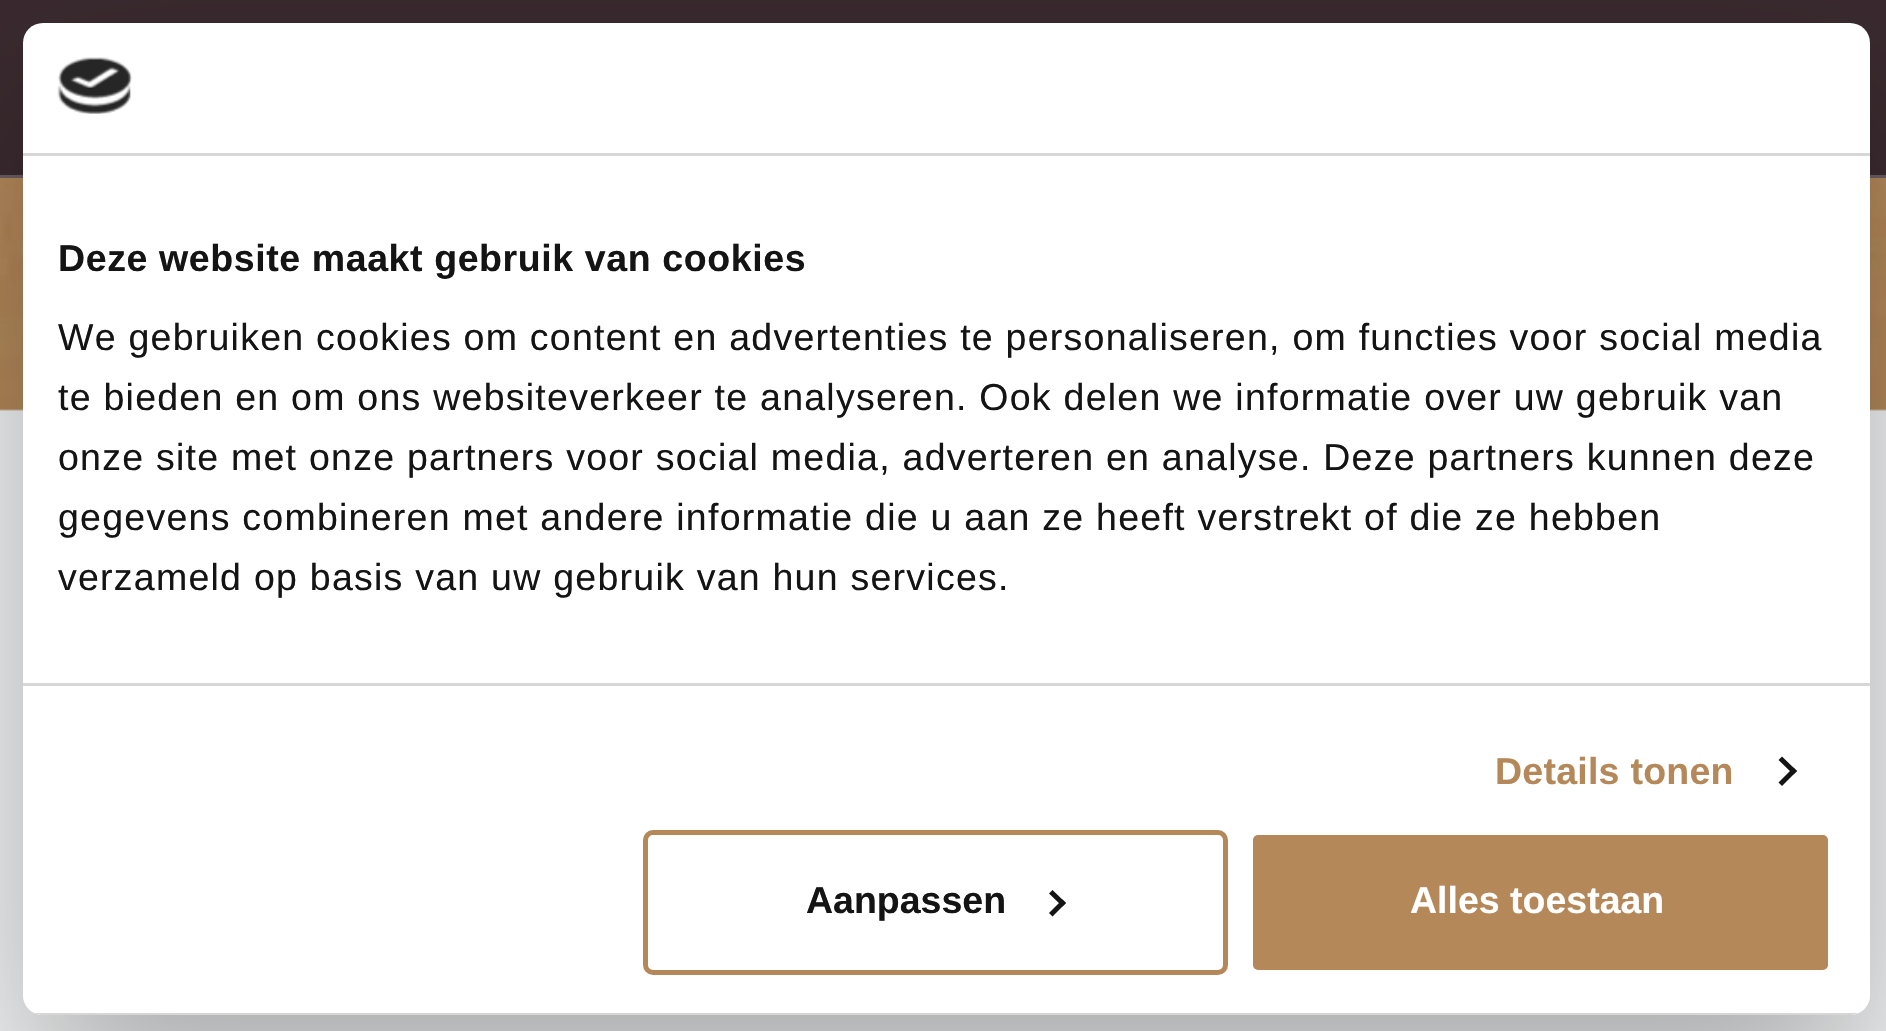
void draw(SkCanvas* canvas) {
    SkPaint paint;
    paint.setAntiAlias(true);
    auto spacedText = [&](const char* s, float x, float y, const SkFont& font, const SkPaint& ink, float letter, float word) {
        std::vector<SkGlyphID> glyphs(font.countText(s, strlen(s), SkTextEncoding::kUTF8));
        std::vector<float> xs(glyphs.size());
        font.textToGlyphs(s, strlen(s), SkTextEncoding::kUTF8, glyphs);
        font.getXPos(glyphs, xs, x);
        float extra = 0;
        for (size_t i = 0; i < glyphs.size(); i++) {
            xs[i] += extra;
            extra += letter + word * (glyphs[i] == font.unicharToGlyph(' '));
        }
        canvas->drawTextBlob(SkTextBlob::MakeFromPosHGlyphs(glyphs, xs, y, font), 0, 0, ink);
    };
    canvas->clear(0xFFF3F5F6);
    paint.setColor(0xFF3A2A2F);
    canvas->drawRect(SkRect::MakeXYWH(0, 0, 1886, 175), paint);
    paint.setColor(0xFF6A5F63);
    canvas->drawRect(SkRect::MakeXYWH(0, 175, 1886, 3), paint);
    canvas->drawImageRect(SkImages::DeferredFromEncodedData(SkData::MakeFromFileName("img1.png")), SkRect::MakeXYWH(0, 178, 1886, 233), SkSamplingOptions());
    canvas->save();
    canvas->clipPath(SkPathBuilder(SkPathFillType::kEvenOdd).moveTo(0, 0).lineTo(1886, 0).lineTo(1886, 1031).lineTo(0, 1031).close().moveTo(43, 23).lineTo(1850, 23).cubicTo(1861, 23, 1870, 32, 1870, 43).lineTo(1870, 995).cubicTo(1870, 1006, 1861, 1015, 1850, 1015).lineTo(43, 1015).cubicTo(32, 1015, 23, 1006, 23, 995).lineTo(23, 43).cubicTo(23, 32, 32, 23, 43, 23).close().detach(), true);
    paint.setColor(0x4D000000);
    paint.setMaskFilter(SkMaskFilter::MakeBlur(kNormal_SkBlurStyle, 85));
    canvas->drawRoundRect(SkRect::MakeXYWH(23, 103, 1847, 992), 20, 20, paint);
    paint.setMaskFilter(nullptr);
    canvas->restore();
    paint.setColor(0xFFFFFFFF);
    canvas->drawRoundRect(SkRect::MakeXYWH(23, 23, 1847, 992), 20, 20, paint);
    paint.setColor(0xFFD6D6D6);
    canvas->drawRect(SkRect::MakeXYWH(23, 153, 1847, 3), paint);
    canvas->drawImageRect(SkImages::DeferredFromEncodedData(SkData::MakeFromFileName("img2.png")), SkRect::MakeXYWH(57, 57, 75, 57), SkSamplingOptions());
    canvas->drawRect(SkRect::MakeXYWH(23, 683, 1847, 3), paint);
    SkFont font1(fontMgr->matchFamilyStyle("Liberation Sans", SkFontStyle::Bold()), 37.5f);
    font1.setSubpixel(true);
    paint.setColor(0xFF141414);
    spacedText("Deze website maakt gebruik van cookies", 58, 271, font1, paint, 0.6f, 0);
    SkFont font2(fontMgr->matchFamilyStyle("Liberation Sans", SkFontStyle::Normal()), 37.5f);
    font2.setSubpixel(true);
    spacedText("We gebruiken cookies om content en advertenties te personaliseren, om functies voor social media", 58, 350, font2, paint, 1.25f, 0);
    spacedText("te bieden en om ons websiteverkeer te analyseren. Ook delen we informatie over uw gebruik van", 58, 410, font2, paint, 1.25f, 0);
    spacedText("onze site met onze partners voor social media, adverteren en analyse. Deze partners kunnen deze", 58, 470, font2, paint, 1.25f, 0);
    spacedText("gegevens combineren met andere informatie die u aan ze heeft verstrekt of die ze hebben", 58, 530, font2, paint, 1.25f, 0);
    spacedText("verzameld op basis van uw gebruik van hun services.", 58, 590, font2, paint, 1.25f, 0);
    paint.setColor(0xFFB48859);
    spacedText("Details tonen", 1495, 784, font1, paint, 0.25f, 0);
    paint.setColor(0xFF141414);
    canvas->drawPath(SkPathBuilder().moveTo(1782, 756.5f).lineTo(1797, 771).lineTo(1793.5f, 774.5f).lineTo(1778.5f, 760).close().detach(), paint);
    canvas->drawPath(SkPathBuilder().moveTo(1793.5f, 767.5f).lineTo(1797, 771).lineTo(1782, 786).lineTo(1778.5f, 782.5f).close().detach(), paint);
    canvas->save();
    canvas->clipPath(SkPathBuilder().moveTo(43, 23).lineTo(1850, 23).cubicTo(1861, 23, 1870, 32, 1870, 43).lineTo(1870, 995).cubicTo(1870, 1006, 1861, 1015, 1850, 1015).lineTo(43, 1015).cubicTo(32, 1015, 23, 1006, 23, 995).lineTo(23, 43).cubicTo(23, 32, 32, 23, 43, 23).close().detach(), true);
    paint.setColor(0xFFD6D6D6);
    canvas->drawRect(SkRect::MakeXYWH(34, 1013, 1825, 2), paint);
    canvas->restore();
    paint.setStyle(SkPaint::kStroke_Style);
    paint.setStrokeWidth(5);
    paint.setColor(0xFFB48859);
    canvas->drawRoundRect(SkRect::MakeXYWH(645.5f, 832.5f, 580, 140), 7.5f, 7.5f, paint);
    paint.setStyle(SkPaint::kFill_Style);
    paint.setColor(0xFF141414);
    canvas->drawString("Aanpassen", 806, 913, font1, paint);
    canvas->drawPath(SkPathBuilder().moveTo(1052.5f, 890).lineTo(1066, 903).lineTo(1062.5f, 906.5f).lineTo(1049, 893.5f).close().detach(), paint);
    canvas->drawPath(SkPathBuilder().moveTo(1062.5f, 899.5f).lineTo(1066, 903).lineTo(1052.5f, 916.5f).lineTo(1049, 913).close().detach(), paint);
    paint.setColor(0xFFB48859);
    canvas->drawRoundRect(SkRect::MakeXYWH(1250.5f, 832.5f, 580, 140), 7.5f, 7.5f, paint);
    paint.setStyle(SkPaint::kStroke_Style);
    paint.setColor(0xFFFFFFFF);
    canvas->drawRoundRect(SkRect::MakeXYWH(1250.5f, 832.5f, 580, 140), 7.5f, 7.5f, paint);
    paint.setStyle(SkPaint::kFill_Style);
    canvas->drawString("Alles toestaan", 1410, 913, font1, paint);
}
